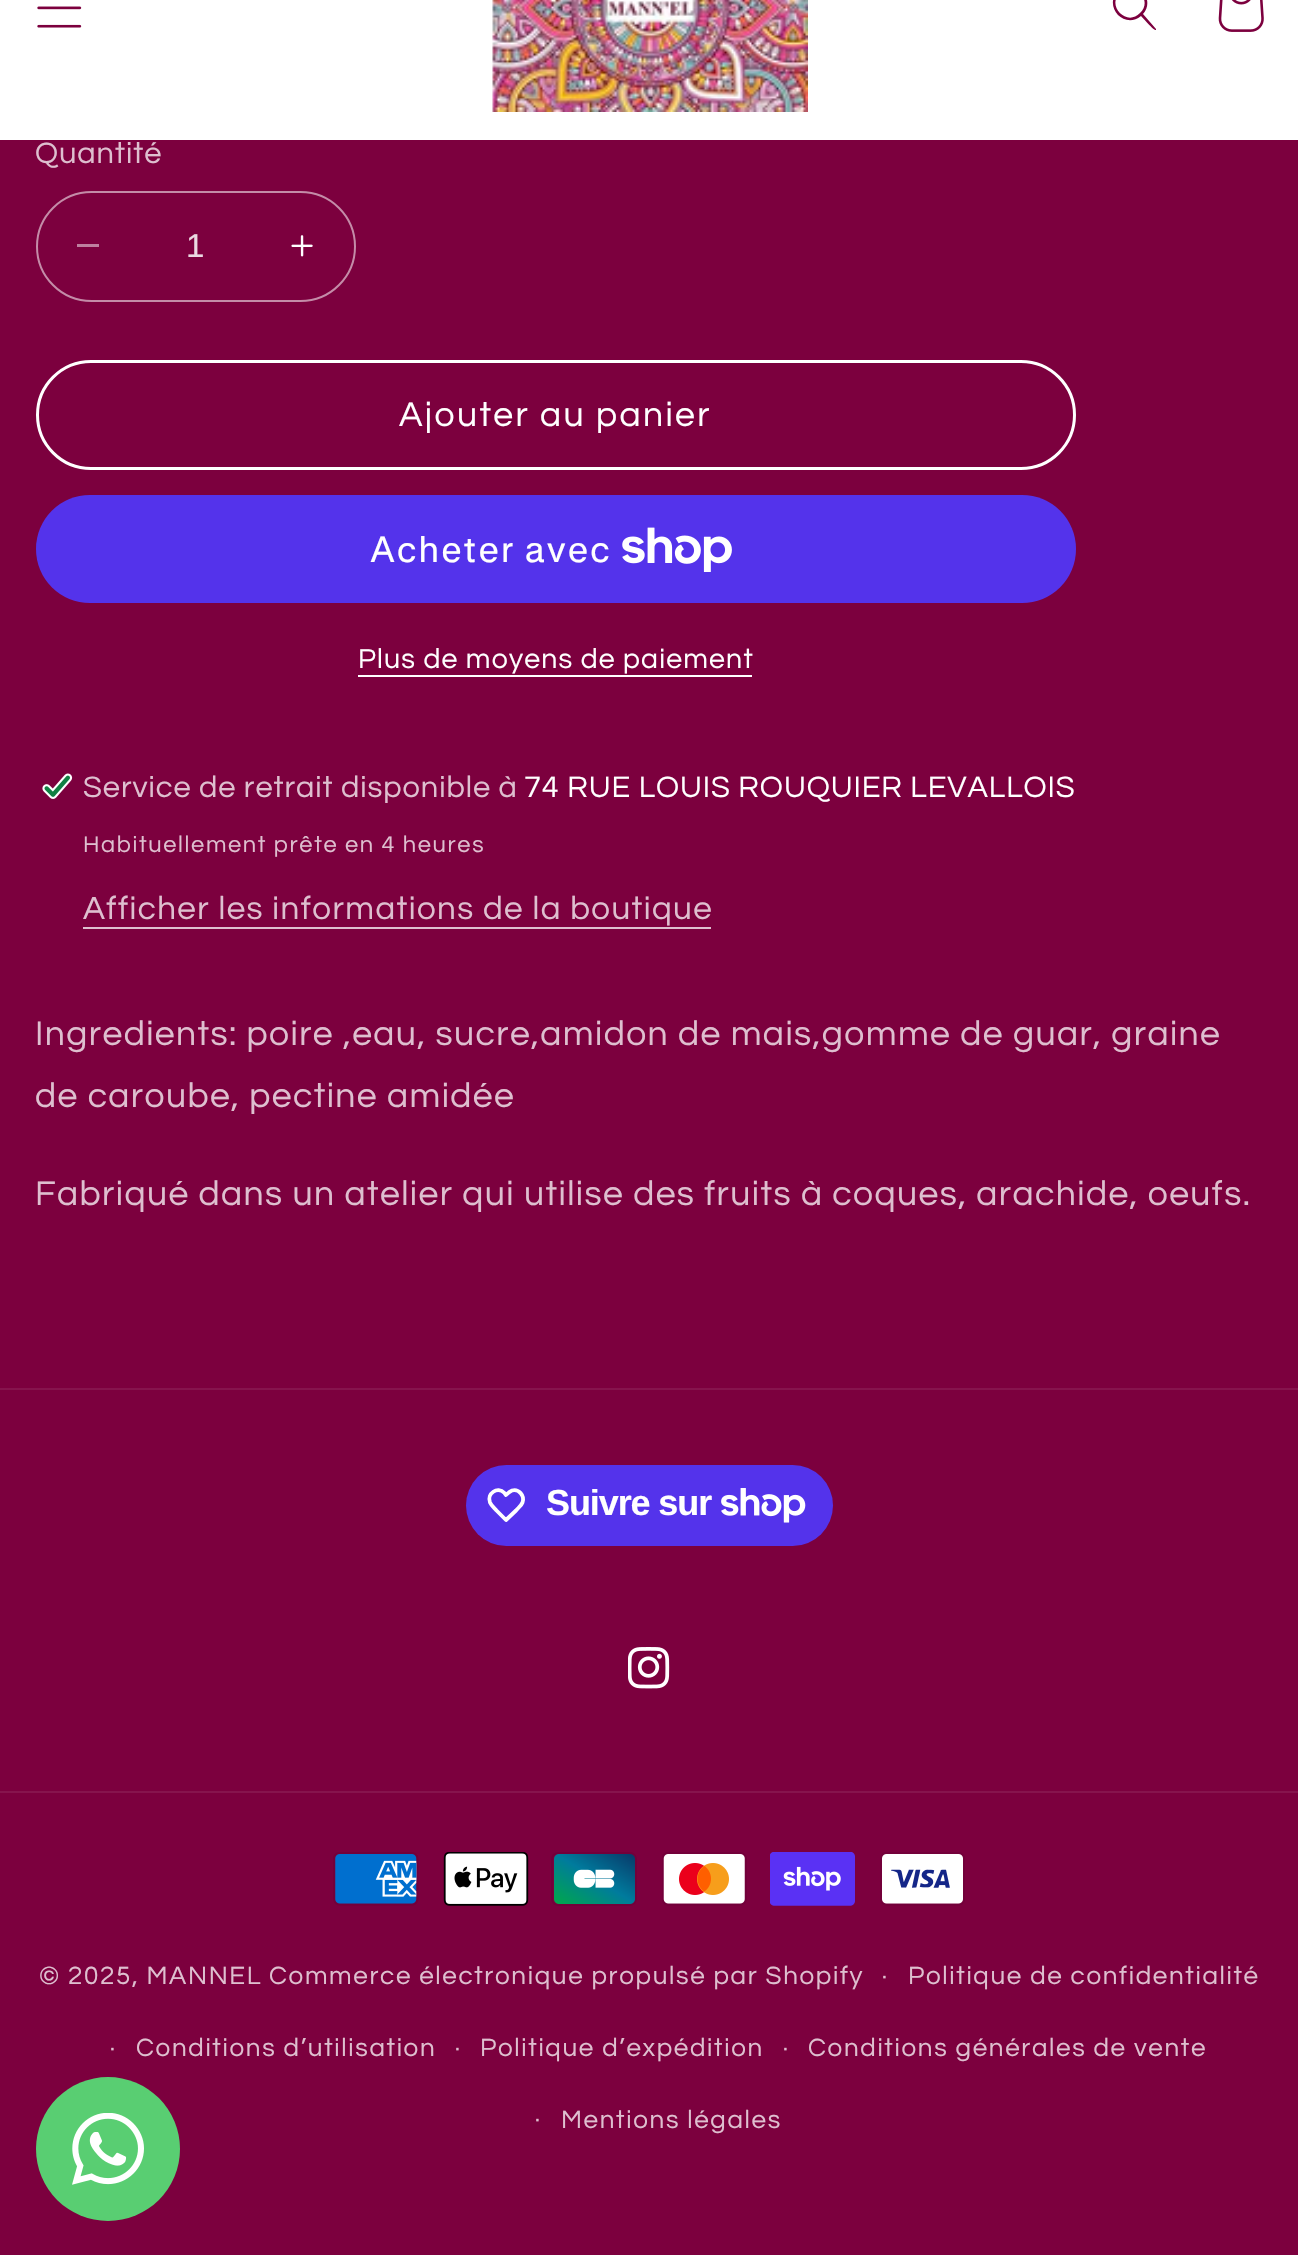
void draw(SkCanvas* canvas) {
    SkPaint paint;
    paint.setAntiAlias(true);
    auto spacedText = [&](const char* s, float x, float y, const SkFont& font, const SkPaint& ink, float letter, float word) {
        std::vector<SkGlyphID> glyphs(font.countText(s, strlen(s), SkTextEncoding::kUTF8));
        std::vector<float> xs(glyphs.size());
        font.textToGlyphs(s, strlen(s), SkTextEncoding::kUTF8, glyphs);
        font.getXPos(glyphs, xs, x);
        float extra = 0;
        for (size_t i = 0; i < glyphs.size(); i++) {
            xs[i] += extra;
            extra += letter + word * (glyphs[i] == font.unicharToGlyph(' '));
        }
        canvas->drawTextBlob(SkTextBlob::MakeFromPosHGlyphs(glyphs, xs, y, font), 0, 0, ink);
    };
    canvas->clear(0xFF7C003E);
    paint.setColor(0xFFFFFFFF);
    canvas->drawRect(SkRect::MakeXYWH(0, 0, 1298, 140), paint);
    canvas->drawImageRect(SkImages::DeferredFromEncodedData(SkData::MakeFromFileName("img1.png")), SkRect::MakeXYWH(37, 6, 45, 22), SkSamplingOptions());
    canvas->drawImageRect(SkImages::DeferredFromEncodedData(SkData::MakeFromFileName("img2.png")), SkRect::MakeXYWH(492, 0, 316, 112), SkSamplingOptions());
    paint.setColor(0xFF7C003E);
    canvas->drawPath(SkPathBuilder(SkPathFillType::kEvenOdd).moveTo(1140, 13).cubicTo(1127, 27, 1106, 6, 1120, -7).cubicTo(1133, -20, 1154, 0, 1140, 13).close().moveTo(1141, 16).cubicTo(1124, 30, 1103, 6, 1118, -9).cubicTo(1134, -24, 1157, -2, 1143, 14).lineTo(1156, 29).lineTo(1156, 30).cubicTo(1154, 31, 1143, 18, 1141, 16).close().detach(), paint);
    canvas->drawImageRect(SkImages::DeferredFromEncodedData(SkData::MakeFromFileName("img3.png")), SkRect::MakeXYWH(1218, 0, 46, 32), SkSamplingOptions());
    SkFont font1(fontMgr->matchFamilyStyle("Questrial", SkFontStyle::Normal()), 30.75f);
    font1.setSubpixel(true);
    paint.setColor(0xFFDEBFCF);
    spacedText("Quantité", 35, 163, font1, paint, 0.95f, 0);
    paint.setColor(0xFFBE809F);
    canvas->drawRect(SkRect::MakeXYWH(77, 244, 22, 3), paint);
    canvas->drawImageRect(SkImages::DeferredFromEncodedData(SkData::MakeFromFileName("img4.png")), SkRect::MakeXYWH(291, 235, 22, 22), SkSamplingOptions());
    paint.setStyle(SkPaint::kStroke_Style);
    paint.setStrokeWidth(2);
    paint.setColor(0xFFC48CA8);
    canvas->drawRoundRect(SkRect::MakeXYWH(37, 192, 318, 109), 54.5f, 54.5f, paint);
    SkFont font2(fontMgr->matchFamilyStyle("Liberation Sans", SkFontStyle::Normal()), 33.1f);
    font2.setSubpixel(true);
    paint.setStyle(SkPaint::kFill_Style);
    paint.setColor(0xFFEBD9E2);
    canvas->drawString("1", 186, 257, font2, paint);
    paint.setStyle(SkPaint::kStroke_Style);
    paint.setStrokeWidth(3);
    paint.setColor(0xFFFFFFFF);
    canvas->drawRoundRect(SkRect::MakeXYWH(37.5f, 361.5f, 1037, 107), 53.5f, 53.5f, paint);
    SkFont font3(fontMgr->matchFamilyStyle("Questrial", SkFontStyle::Normal()), 35.45f);
    font3.setSubpixel(true);
    paint.setStyle(SkPaint::kFill_Style);
    spacedText("Ajouter au panier", 399, 426, font3, paint, 2.4f, 0);
    paint.setColor(0xFF5433EB);
    canvas->drawRoundRect(SkRect::MakeXYWH(36, 495, 1040, 108), 54, 54, paint);
    SkFont font4(fontMgr->matchFamilyStyle("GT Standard", SkFontStyle::Normal()), 36);
    font4.setSubpixel(true);
    paint.setColor(0xFFFFFFFF);
    spacedText("Acheter avec", 370, 562, font4, paint, 1.42f, 0);
    canvas->drawImageRect(SkImages::DeferredFromEncodedData(SkData::MakeFromFileName("img5.png")), SkRect::MakeXYWH(622, 527, 110, 45), SkSamplingOptions());
    SkFont font5(fontMgr->matchFamilyStyle("Questrial", SkFontStyle::Normal()), 28.4f);
    font5.setSubpixel(true);
    spacedText("Plus de moyens de paiement", 358, 668, font5, paint, 1.2f, 0);
    canvas->drawRect(SkRect::MakeXYWH(358, 675, 394, 2), paint);
    canvas->drawImageRect(SkImages::DeferredFromEncodedData(SkData::MakeFromFileName("img6.png")), SkRect::MakeXYWH(42, 773, 31, 26), SkSamplingOptions());
    paint.setColor(0xFFDEBFCF);
    spacedText("Service de retrait disponible à", 83, 797, font1, paint, 0.95f, 0);
    paint.setColor(0xFFFFFFFF);
    spacedText("74 RUE LOUIS ROUQUIER LEVALLOIS", 524, 797, font1, paint, 0.95f, 0);
    SkFont font6(fontMgr->matchFamilyStyle("Questrial", SkFontStyle::Normal()), 23.6f);
    font6.setSubpixel(true);
    paint.setColor(0xFFDEBFCF);
    spacedText("Habituellement prête en 4 heures", 83, 852, font6, paint, 1.65f, 0);
    SkFont font7(fontMgr->matchFamilyStyle("Questrial", SkFontStyle::Normal()), 33.1f);
    font7.setSubpixel(true);
    spacedText("Afficher les informations de la boutique", 83, 919, font7, paint, 1.42f, 0);
    canvas->drawRect(SkRect::MakeXYWH(83, 927, 628, 2), paint);
    spacedText("Ingredients: poire ,eau, sucre,amidon de mais,gomme de guar, graine", 35, 1045, font3, paint, 1.42f, 0);
    spacedText("de caroube, pectine amidée", 35, 1107, font3, paint, 1.42f, 0);
    spacedText("Fabriqué dans un atelier qui utilise des fruits à coques, arachide, oeufs.", 35, 1205, font3, paint, 1.42f, 0);
    paint.setColor(0xFF86144D);
    canvas->drawRect(SkRect::MakeXYWH(0, 1388, 1298, 2), paint);
    paint.setColor(0xFF5433EB);
    canvas->drawRoundRect(SkRect::MakeXYWH(466, 1465, 367, 81), 40.5f, 40.5f, paint);
    paint.setStyle(SkPaint::kStroke_Style);
    paint.setStrokeWidth(3.8f);
    paint.setStrokeJoin(SkPaint::kRound_Join);
    paint.setColor(0xFFFFFFFF);
    canvas->drawPath(SkPathBuilder().moveTo(504.5f, 1493).lineTo(506, 1495).cubicTo(508, 1493, 509.5f, 1491.5f, 512, 1490.5f).cubicTo(518.5f, 1488.5f, 525, 1495.5f, 522.5f, 1502.5f).cubicTo(521.5f, 1505.5f, 518, 1508, 516, 1510.5f).lineTo(506, 1520).lineTo(496.5f, 1510.5f).cubicTo(494.5f, 1508, 491.5f, 1506, 490, 1502.5f).cubicTo(486.5f, 1493.5f, 497.5f, 1486, 504.5f, 1493).close().detach(), paint);
    SkFont font8(fontMgr->matchFamilyStyle("Liberation Sans", SkFontStyle::Bold()), 36);
    font8.setSubpixel(true);
    paint.setStyle(SkPaint::kFill_Style);
    spacedText("Suivre sur", 546, 1515, font8, paint, -1.1f, 0);
    canvas->drawImageRect(SkImages::DeferredFromEncodedData(SkData::MakeFromFileName("img7.png")), SkRect::MakeXYWH(721, 1488, 85, 35), SkSamplingOptions());
    canvas->drawImageRect(SkImages::DeferredFromEncodedData(SkData::MakeFromFileName("img8.png")), SkRect::MakeXYWH(628, 1647, 42, 42), SkSamplingOptions());
    paint.setColor(0xFF86144D);
    canvas->drawRect(SkRect::MakeXYWH(0, 1791, 1298, 2), paint);
    canvas->drawImageRect(SkImages::DeferredFromEncodedData(SkData::MakeFromFileName("img9.png")), SkRect::MakeXYWH(333, 1852, 86, 54), SkSamplingOptions());
    canvas->drawImageRect(SkImages::DeferredFromEncodedData(SkData::MakeFromFileName("img10.png")), SkRect::MakeXYWH(443, 1852, 86, 54), SkSamplingOptions());
    canvas->drawImageRect(SkImages::DeferredFromEncodedData(SkData::MakeFromFileName("img11.png")), SkRect::MakeXYWH(551, 1852, 86, 54), SkSamplingOptions());
    canvas->drawImageRect(SkImages::DeferredFromEncodedData(SkData::MakeFromFileName("img12.png")), SkRect::MakeXYWH(662, 1852, 85, 54), SkSamplingOptions());
    canvas->drawImageRect(SkImages::DeferredFromEncodedData(SkData::MakeFromFileName("img13.png")), SkRect::MakeXYWH(770, 1852, 85, 54), SkSamplingOptions());
    canvas->drawImageRect(SkImages::DeferredFromEncodedData(SkData::MakeFromFileName("img14.png")), SkRect::MakeXYWH(880, 1852, 85, 54), SkSamplingOptions());
    paint.setColor(0xFFDEBFCF);
    spacedText("·", 882, 1984, font6, paint, 1.65f, 0);
    SkFont font9(fontMgr->matchFamilyStyle("Questrial", SkFontStyle::Normal()), 26);
    font9.setSubpixel(true);
    spacedText("Politique de confidentialité", 908, 1984, font9, paint, 1.65f, 0);
    spacedText("·", 110, 2056, font6, paint, 1.65f, 0);
    spacedText("Conditions d’utilisation", 136, 2056, font9, paint, 1.65f, 0);
    spacedText("·", 455, 2056, font6, paint, 1.65f, 0);
    spacedText("Politique d’expédition", 480, 2056, font9, paint, 1.65f, 0);
    spacedText("·", 783, 2056, font6, paint, 1.65f, 0);
    spacedText("Conditions générales de vente", 808, 2056, font9, paint, 1.65f, 0);
    spacedText("·", 535, 2127, font6, paint, 1.65f, 0);
    spacedText("Mentions légales", 561, 2128, font9, paint, 1.65f, 0);
    spacedText("© 2025, MANNEL", 39, 1984, font9, paint, 1.65f, 0);
    spacedText("Commerce électronique propulsé par Shopify", 269, 1984, font9, paint, 1.65f, 0);
    paint.setColor(0xFF59CE72);
    canvas->drawCircle(108, 2149, 72, paint);
    canvas->drawImageRect(SkImages::DeferredFromEncodedData(SkData::MakeFromFileName("img15.png")), SkRect::MakeXYWH(72, 2113, 72, 72), SkSamplingOptions());
}
